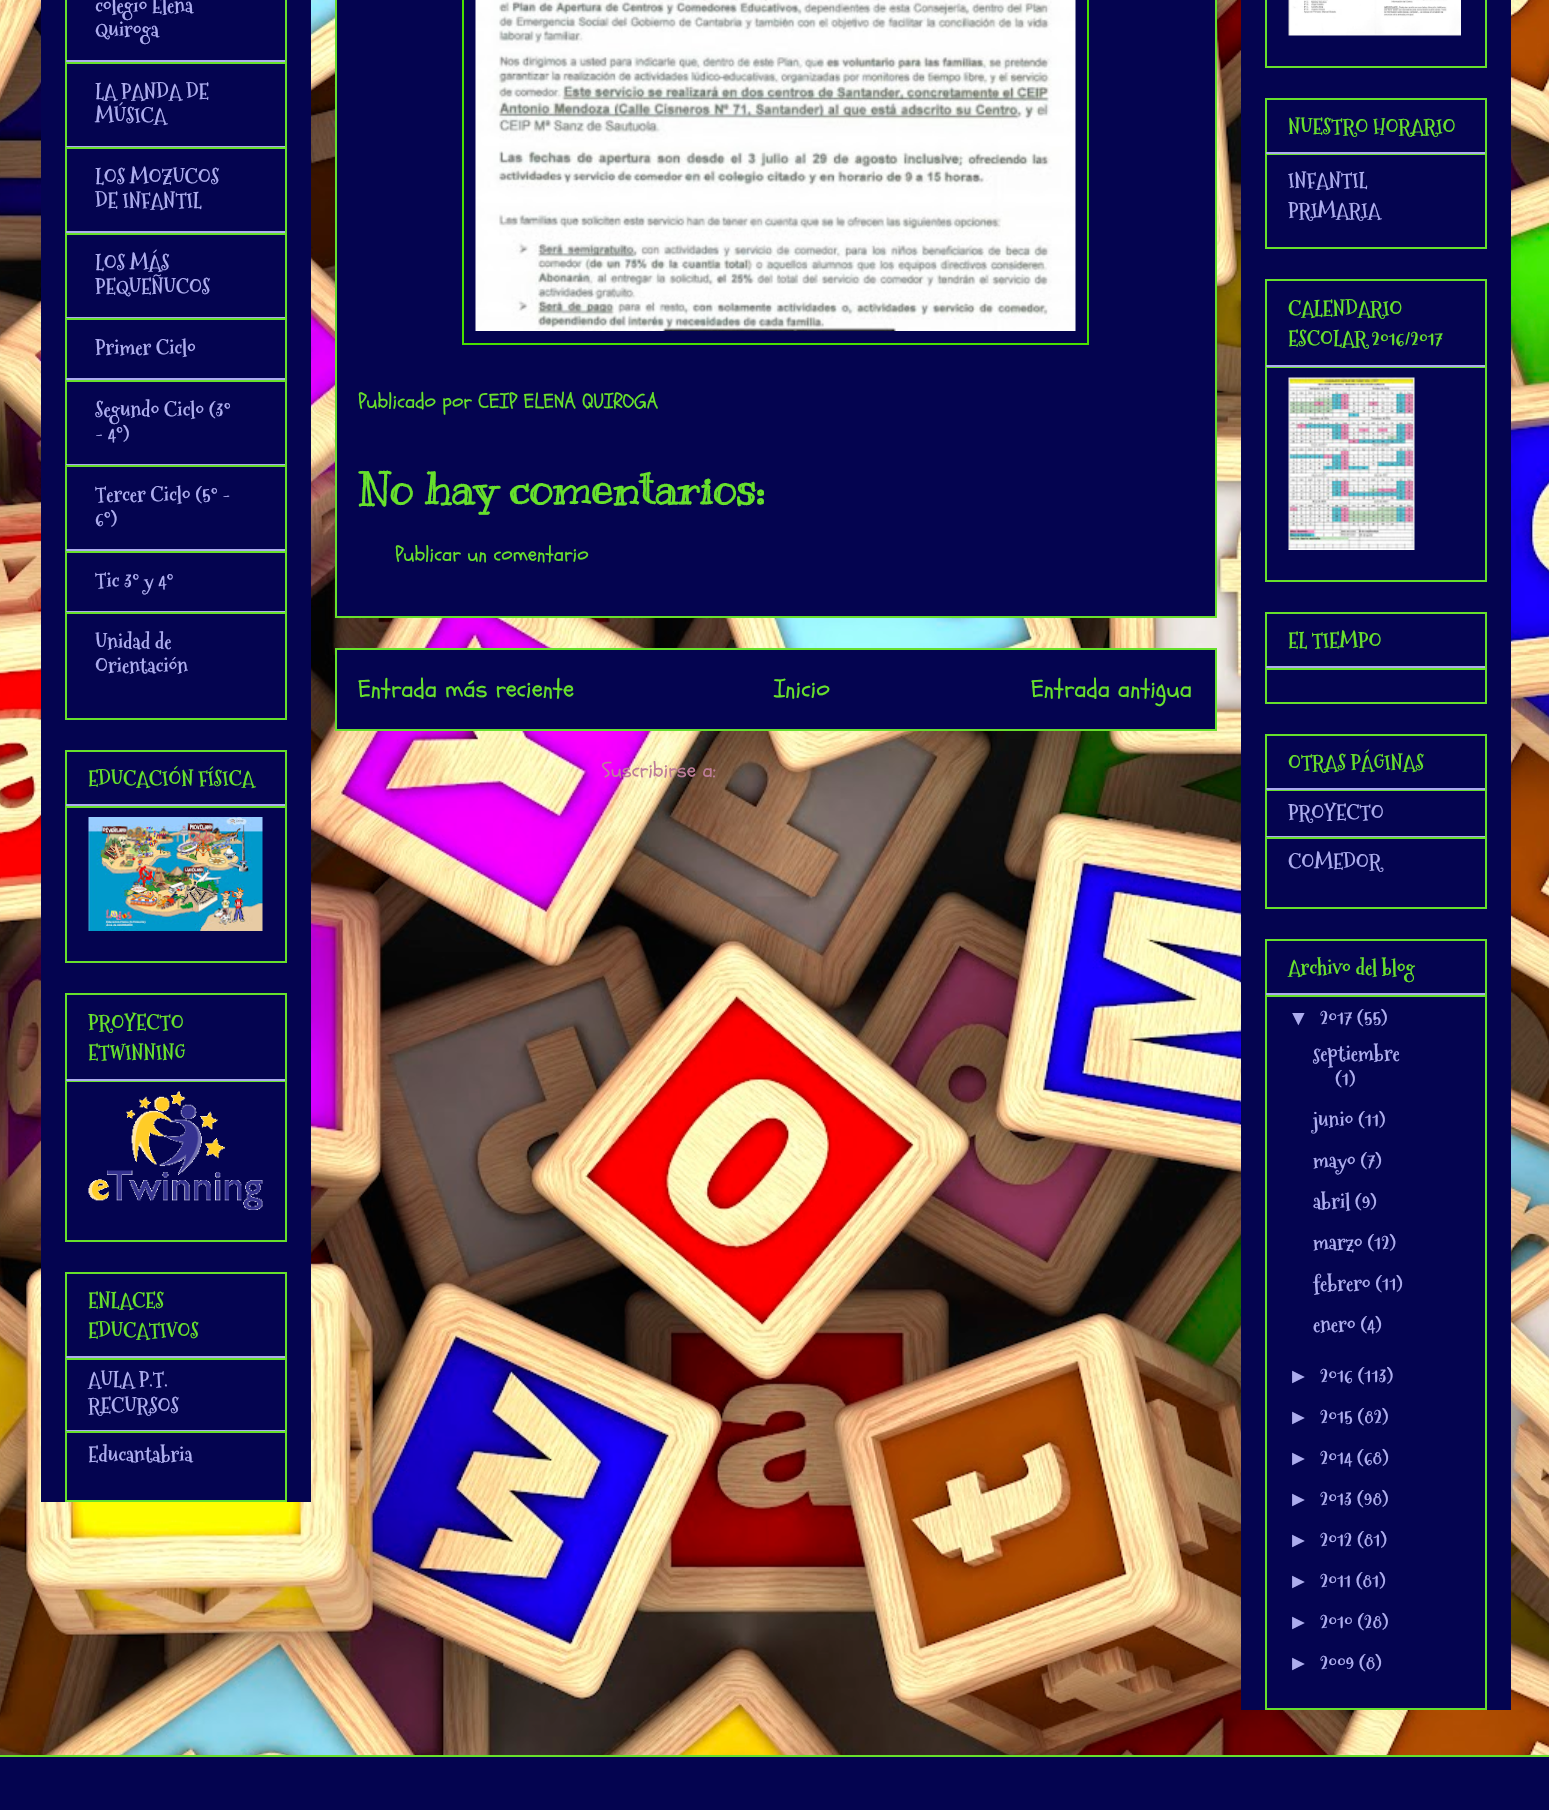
void draw(SkCanvas* canvas) {
    SkPaint paint;
    paint.setAntiAlias(true);
    canvas->clear(0xFFFFFFFF);
    canvas->drawImageRect(SkImages::DeferredFromEncodedData(SkData::MakeFromFileName("img1.png")), SkRect::MakeXYWH(0, 0, 1549, 1755), SkSamplingOptions());
    paint.setColor(0xFF040450);
    canvas->drawRect(SkRect::MakeXYWH(41, 0, 270, 1502), paint);
    paint.setStyle(SkPaint::kStroke_Style);
    paint.setStrokeWidth(2);
    paint.setColor(0xFF67E02C);
    canvas->drawRect(SkRect::MakeXYWH(66, -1, 220, 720), paint);
    paint.setStyle(SkPaint::kFill_Style);
    paint.setColor(0xFFACACEE);
    canvas->drawRect(SkRect::MakeXYWH(66, 60, 219, 2), paint);
    SkFont font1(fontMgr->matchFamilyStyle("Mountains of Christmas", SkFontStyle::Bold()), 21);
    font1.setSubpixel(true);
    canvas->drawString("colegio Elena", 95, 13, font1, paint);
    canvas->drawString("Quiroga", 95, 37, font1, paint);
    paint.setColor(0xFF67E02C);
    canvas->drawRect(SkRect::MakeXYWH(66, 62, 219, 2), paint);
    paint.setColor(0xFFACACEE);
    canvas->drawRect(SkRect::MakeXYWH(66, 146, 219, 1), paint);
    canvas->drawString("LA PANDA DE", 95, 99, font1, paint);
    canvas->drawString("MÚSICA", 95, 123, font1, paint);
    paint.setColor(0xFF67E02C);
    canvas->drawRect(SkRect::MakeXYWH(66, 147, 219, 2), paint);
    paint.setColor(0xFFACACEE);
    canvas->drawRect(SkRect::MakeXYWH(66, 231, 219, 2), paint);
    canvas->drawString("LOS MOZUCOS", 95, 184, font1, paint);
    canvas->drawString("DE INFANTIL", 95, 208, font1, paint);
    paint.setColor(0xFF67E02C);
    canvas->drawRect(SkRect::MakeXYWH(66, 233, 219, 2), paint);
    paint.setColor(0xFFACACEE);
    canvas->drawRect(SkRect::MakeXYWH(66, 317, 219, 1), paint);
    canvas->drawString("LOS MÁS", 95, 270, font1, paint);
    canvas->drawString("PEQUEÑUCOS", 95, 294, font1, paint);
    paint.setColor(0xFF67E02C);
    canvas->drawRect(SkRect::MakeXYWH(66, 318, 219, 2), paint);
    paint.setColor(0xFFACACEE);
    canvas->drawRect(SkRect::MakeXYWH(66, 378, 219, 2), paint);
    canvas->drawString("Primer Ciclo", 95, 355, font1, paint);
    paint.setColor(0xFF67E02C);
    canvas->drawRect(SkRect::MakeXYWH(66, 380, 219, 2), paint);
    paint.setColor(0xFFACACEE);
    canvas->drawRect(SkRect::MakeXYWH(66, 464, 219, 1), paint);
    canvas->drawString("Segundo Ciclo (3º", 95, 417, font1, paint);
    canvas->drawString("- 4º)", 95, 441, font1, paint);
    paint.setColor(0xFF67E02C);
    canvas->drawRect(SkRect::MakeXYWH(66, 465, 219, 2), paint);
    paint.setColor(0xFFACACEE);
    canvas->drawRect(SkRect::MakeXYWH(66, 549, 219, 2), paint);
    canvas->drawString("Tercer Ciclo (5º -", 95, 502, font1, paint);
    canvas->drawString("6º)", 95, 526, font1, paint);
    paint.setColor(0xFF67E02C);
    canvas->drawRect(SkRect::MakeXYWH(66, 551, 219, 2), paint);
    paint.setColor(0xFFACACEE);
    canvas->drawRect(SkRect::MakeXYWH(66, 611, 219, 1), paint);
    canvas->drawString("Tic 3º y 4º", 95, 588, font1, paint);
    paint.setColor(0xFF67E02C);
    canvas->drawRect(SkRect::MakeXYWH(66, 612, 219, 2), paint);
    paint.setColor(0xFFACACEE);
    canvas->drawString("Unidad de", 95, 649, font1, paint);
    canvas->drawString("Orientación", 95, 673, font1, paint);
    paint.setStyle(SkPaint::kStroke_Style);
    paint.setColor(0xFF67E02C);
    canvas->drawRect(SkRect::MakeXYWH(66, 751, 220, 211), paint);
    paint.setStyle(SkPaint::kFill_Style);
    paint.setColor(0xFFACACEE);
    canvas->drawRect(SkRect::MakeXYWH(66, 804, 219, 2), paint);
    paint.setColor(0xFF67E02C);
    canvas->drawString("EDUCACIÓN FÍSICA", 88, 786, font1, paint);
    canvas->drawRect(SkRect::MakeXYWH(66, 806, 219, 2), paint);
    canvas->drawImageRect(SkImages::DeferredFromEncodedData(SkData::MakeFromFileName("img2.png")), SkRect::MakeXYWH(88, 817, 175, 114), SkSamplingOptions());
    paint.setStyle(SkPaint::kStroke_Style);
    canvas->drawRect(SkRect::MakeXYWH(66, 994, 220, 247), paint);
    paint.setStyle(SkPaint::kFill_Style);
    paint.setColor(0xFFACACEE);
    canvas->drawRect(SkRect::MakeXYWH(66, 1079, 219, 2), paint);
    paint.setColor(0xFF67E02C);
    canvas->drawString("PROYECTO", 88, 1030, font1, paint);
    canvas->drawString("ETWINNING", 88, 1060, font1, paint);
    canvas->drawRect(SkRect::MakeXYWH(66, 1081, 219, 1), paint);
    canvas->drawImageRect(SkImages::DeferredFromEncodedData(SkData::MakeFromFileName("img3.png")), SkRect::MakeXYWH(88, 1091, 175, 119), SkSamplingOptions());
    paint.setStyle(SkPaint::kStroke_Style);
    canvas->drawRect(SkRect::MakeXYWH(66, 1273, 220, 228), paint);
    paint.setStyle(SkPaint::kFill_Style);
    paint.setColor(0xFFACACEE);
    canvas->drawRect(SkRect::MakeXYWH(66, 1356, 219, 2), paint);
    paint.setColor(0xFF67E02C);
    canvas->drawString("ENLACES", 88, 1308, font1, paint);
    canvas->drawString("EDUCATIVOS", 88, 1338, font1, paint);
    canvas->drawRect(SkRect::MakeXYWH(66, 1358, 219, 2), paint);
    paint.setColor(0xFFACACEE);
    canvas->drawRect(SkRect::MakeXYWH(66, 1430, 219, 1), paint);
    canvas->drawString("AULA P.T.", 88, 1387, font1, paint);
    canvas->drawString("RECURSOS", 88, 1413, font1, paint);
    paint.setColor(0xFF67E02C);
    canvas->drawRect(SkRect::MakeXYWH(66, 1431, 219, 2), paint);
    paint.setColor(0xFFACACEE);
    canvas->drawString("Educantabria", 88, 1462, font1, paint);
    paint.setColor(0xFF040450);
    canvas->drawRect(SkRect::MakeXYWH(336, -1, 880, 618), paint);
    paint.setStyle(SkPaint::kStroke_Style);
    paint.setColor(0xFF67E02C);
    canvas->drawRect(SkRect::MakeXYWH(336, -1, 880, 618), paint);
    paint.setColor(0xFF49E000);
    canvas->drawRect(SkRect::MakeXYWH(463, -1, 625, 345), paint);
    canvas->drawImageRect(SkImages::DeferredFromEncodedData(SkData::MakeFromFileName("img4.png")), SkRect::MakeXYWH(475, 0, 601, 331), SkSamplingOptions());
    SkFont font2(fontMgr->matchFamilyStyle("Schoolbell", SkFontStyle::Normal()), 21);
    font2.setSubpixel(true);
    paint.setStyle(SkPaint::kFill_Style);
    paint.setColor(0xFF67E02C);
    canvas->drawString("Publicado por CEIP ELENA QUIROGA", 358, 408, font2, paint);
    SkFont font3(fontMgr->matchFamilyStyle("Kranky", SkFontStyle::Bold()), 45);
    font3.setSubpixel(true);
    canvas->drawString("No hay comentarios:", 358, 504, font3, paint);
    canvas->drawString("Publicar un comentario", 395, 561, font2, paint);
    paint.setColor(0xFF040450);
    canvas->drawRect(SkRect::MakeXYWH(336, 649, 880, 81), paint);
    paint.setStyle(SkPaint::kStroke_Style);
    paint.setColor(0xFF67E02C);
    canvas->drawRect(SkRect::MakeXYWH(336, 649, 880, 81), paint);
    SkFont font4(fontMgr->matchFamilyStyle("Schoolbell", SkFontStyle::Normal()), 25.25f);
    font4.setSubpixel(true);
    paint.setStyle(SkPaint::kFill_Style);
    canvas->drawString("Entrada más reciente", 358, 697, font4, paint);
    canvas->drawString("Inicio", 774, 697, font4, paint);
    canvas->drawString("Entrada antigua", 1031, 697, font4, paint);
    paint.setColor(0xFFBE7D99);
    canvas->drawString("Suscribirse a:", 602, 777, font2, paint);
    paint.setColor(0xFF040450);
    canvas->drawRect(SkRect::MakeXYWH(1241, 0, 270, 1710), paint);
    paint.setStyle(SkPaint::kStroke_Style);
    paint.setColor(0xFF67E02C);
    canvas->drawRect(SkRect::MakeXYWH(1266, -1, 220, 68), paint);
    canvas->drawImageRect(SkImages::DeferredFromEncodedData(SkData::MakeFromFileName("img5.png")), SkRect::MakeXYWH(1288, 0, 173, 36), SkSamplingOptions());
    canvas->drawRect(SkRect::MakeXYWH(1266, 99, 220, 149), paint);
    paint.setStyle(SkPaint::kFill_Style);
    paint.setColor(0xFFACACEE);
    canvas->drawRect(SkRect::MakeXYWH(1266, 152, 219, 2), paint);
    paint.setColor(0xFF67E02C);
    canvas->drawString("NUESTRO HORARIO", 1288, 134, font1, paint);
    canvas->drawRect(SkRect::MakeXYWH(1266, 154, 219, 1), paint);
    paint.setColor(0xFFACACEE);
    canvas->drawString("INFANTIL", 1288, 188, font1, paint);
    canvas->drawString("PRIMARIA", 1288, 218, font1, paint);
    paint.setStyle(SkPaint::kStroke_Style);
    paint.setColor(0xFF67E02C);
    canvas->drawRect(SkRect::MakeXYWH(1266, 280, 220, 301), paint);
    paint.setStyle(SkPaint::kFill_Style);
    paint.setColor(0xFFACACEE);
    canvas->drawRect(SkRect::MakeXYWH(1266, 365, 219, 2), paint);
    paint.setColor(0xFF67E02C);
    canvas->drawString("CALENDARIO", 1288, 316, font1, paint);
    canvas->drawString("ESCOLAR 2016/2017", 1288, 346, font1, paint);
    canvas->drawRect(SkRect::MakeXYWH(1266, 367, 219, 1), paint);
    canvas->drawImageRect(SkImages::DeferredFromEncodedData(SkData::MakeFromFileName("img6.png")), SkRect::MakeXYWH(1288, 377, 127, 173), SkSamplingOptions());
    paint.setStyle(SkPaint::kStroke_Style);
    canvas->drawRect(SkRect::MakeXYWH(1266, 613, 220, 90), paint);
    paint.setStyle(SkPaint::kFill_Style);
    paint.setColor(0xFFACACEE);
    canvas->drawRect(SkRect::MakeXYWH(1266, 666, 219, 2), paint);
    paint.setColor(0xFF67E02C);
    canvas->drawString("EL TIEMPO", 1288, 648, font1, paint);
    canvas->drawRect(SkRect::MakeXYWH(1266, 668, 219, 2), paint);
    paint.setStyle(SkPaint::kStroke_Style);
    canvas->drawRect(SkRect::MakeXYWH(1266, 735, 220, 173), paint);
    paint.setStyle(SkPaint::kFill_Style);
    paint.setColor(0xFFACACEE);
    canvas->drawRect(SkRect::MakeXYWH(1266, 788, 219, 2), paint);
    paint.setColor(0xFF67E02C);
    canvas->drawString("OTRAS PÁGINAS", 1288, 770, font1, paint);
    canvas->drawRect(SkRect::MakeXYWH(1266, 790, 219, 1), paint);
    paint.setColor(0xFFACACEE);
    canvas->drawRect(SkRect::MakeXYWH(1266, 836, 219, 1), paint);
    canvas->drawString("PROYECTO", 1288, 820, font1, paint);
    paint.setColor(0xFF67E02C);
    canvas->drawRect(SkRect::MakeXYWH(1266, 837, 219, 2), paint);
    paint.setColor(0xFFACACEE);
    canvas->drawString("COMEDOR", 1288, 869, font1, paint);
    paint.setStyle(SkPaint::kStroke_Style);
    paint.setColor(0xFF67E02C);
    canvas->drawRect(SkRect::MakeXYWH(1266, 940, 220, 769), paint);
    paint.setStyle(SkPaint::kFill_Style);
    paint.setColor(0xFFACACEE);
    canvas->drawRect(SkRect::MakeXYWH(1266, 993, 219, 2), paint);
    paint.setColor(0xFF67E02C);
    canvas->drawString("Archivo del blog", 1288, 975, font1, paint);
    canvas->drawRect(SkRect::MakeXYWH(1266, 995, 219, 2), paint);
    SkFont font5(fontMgr->matchFamilyStyle("Liberation Sans", SkFontStyle::Bold()), 21);
    font5.setSubpixel(true);
    paint.setColor(0xFFACACEE);
    canvas->drawString("▼", 1288, 1025, font5, paint);
    canvas->drawString("2017 (55)", 1320, 1025, font1, paint);
    canvas->drawString("septiembre", 1313, 1061, font1, paint);
    canvas->drawString("(1)", 1335, 1086, font1, paint);
    canvas->drawString("junio (11)", 1313, 1127, font1, paint);
    canvas->drawString("mayo (7)", 1313, 1168, font1, paint);
    canvas->drawString("abril (9)", 1313, 1209, font1, paint);
    canvas->drawString("marzo (12)", 1313, 1250, font1, paint);
    canvas->drawString("febrero (11)", 1313, 1291, font1, paint);
    canvas->drawString("enero (4)", 1313, 1332, font1, paint);
    canvas->drawString("►", 1288, 1383, font5, paint);
    canvas->drawString("2016 (113)", 1320, 1383, font1, paint);
    canvas->drawString("►", 1288, 1424, font5, paint);
    canvas->drawString("2015 (82)", 1320, 1424, font1, paint);
    canvas->drawString("►", 1288, 1465, font5, paint);
    canvas->drawString("2014 (68)", 1320, 1465, font1, paint);
    canvas->drawString("►", 1288, 1506, font5, paint);
    canvas->drawString("2013 (98)", 1320, 1506, font1, paint);
    canvas->drawString("►", 1288, 1547, font5, paint);
    canvas->drawString("2012 (81)", 1320, 1547, font1, paint);
    canvas->drawString("►", 1288, 1588, font5, paint);
    canvas->drawString("2011 (81)", 1320, 1588, font1, paint);
    canvas->drawString("►", 1288, 1629, font5, paint);
    canvas->drawString("2010 (28)", 1320, 1629, font1, paint);
    canvas->drawString("►", 1288, 1670, font5, paint);
    canvas->drawString("2009 (8)", 1320, 1670, font1, paint);
    paint.setColor(0xFF040450);
    canvas->drawRect(SkRect::MakeXYWH(0, 1757, 1549, 53), paint);
    paint.setColor(0xFF67E02C);
    canvas->drawRect(SkRect::MakeXYWH(0, 1755, 1549, 2), paint);
}
